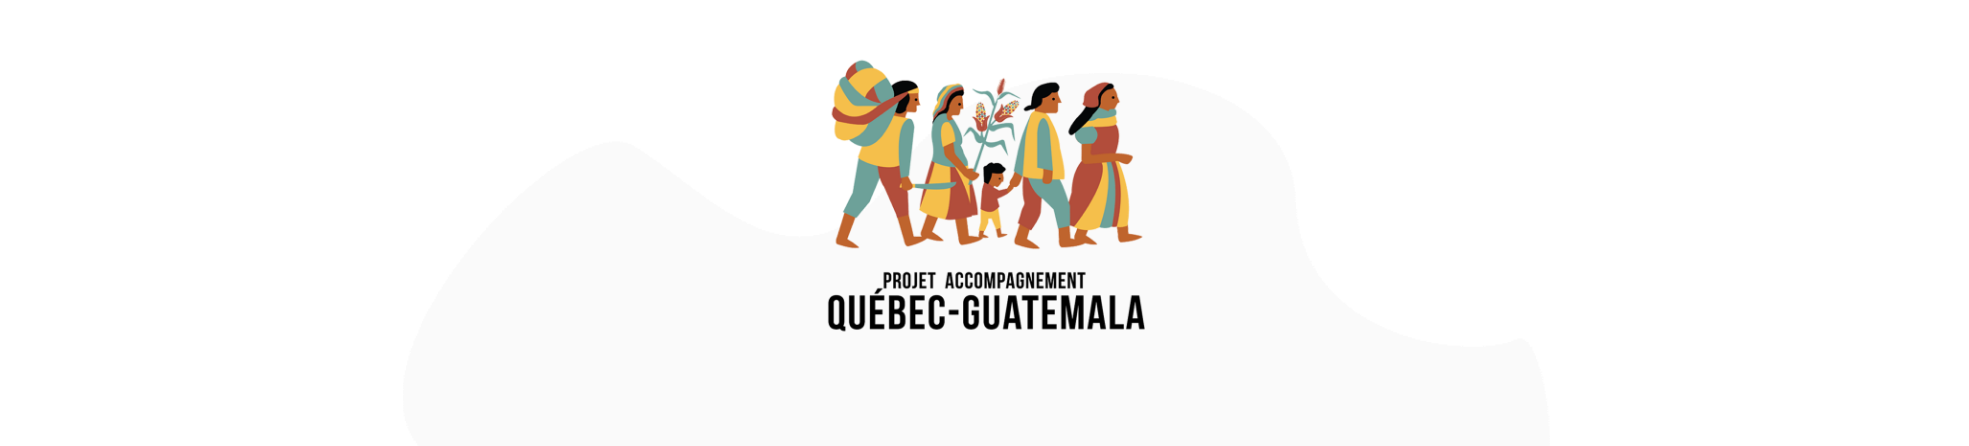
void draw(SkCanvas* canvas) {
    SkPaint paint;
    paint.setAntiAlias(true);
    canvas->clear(0xFFFFFFFF);
    canvas->drawImageRect(SkImages::DeferredFromEncodedData(SkData::MakeFromFileName("img1.png")), SkRect::MakeXYWH(403, 73, 1147, 373), SkSamplingOptions());
    canvas->drawImageRect(SkImages::DeferredFromEncodedData(SkData::MakeFromFileName("img2.png")), SkRect::MakeXYWH(827, 59, 318, 273), SkSamplingOptions());
}
